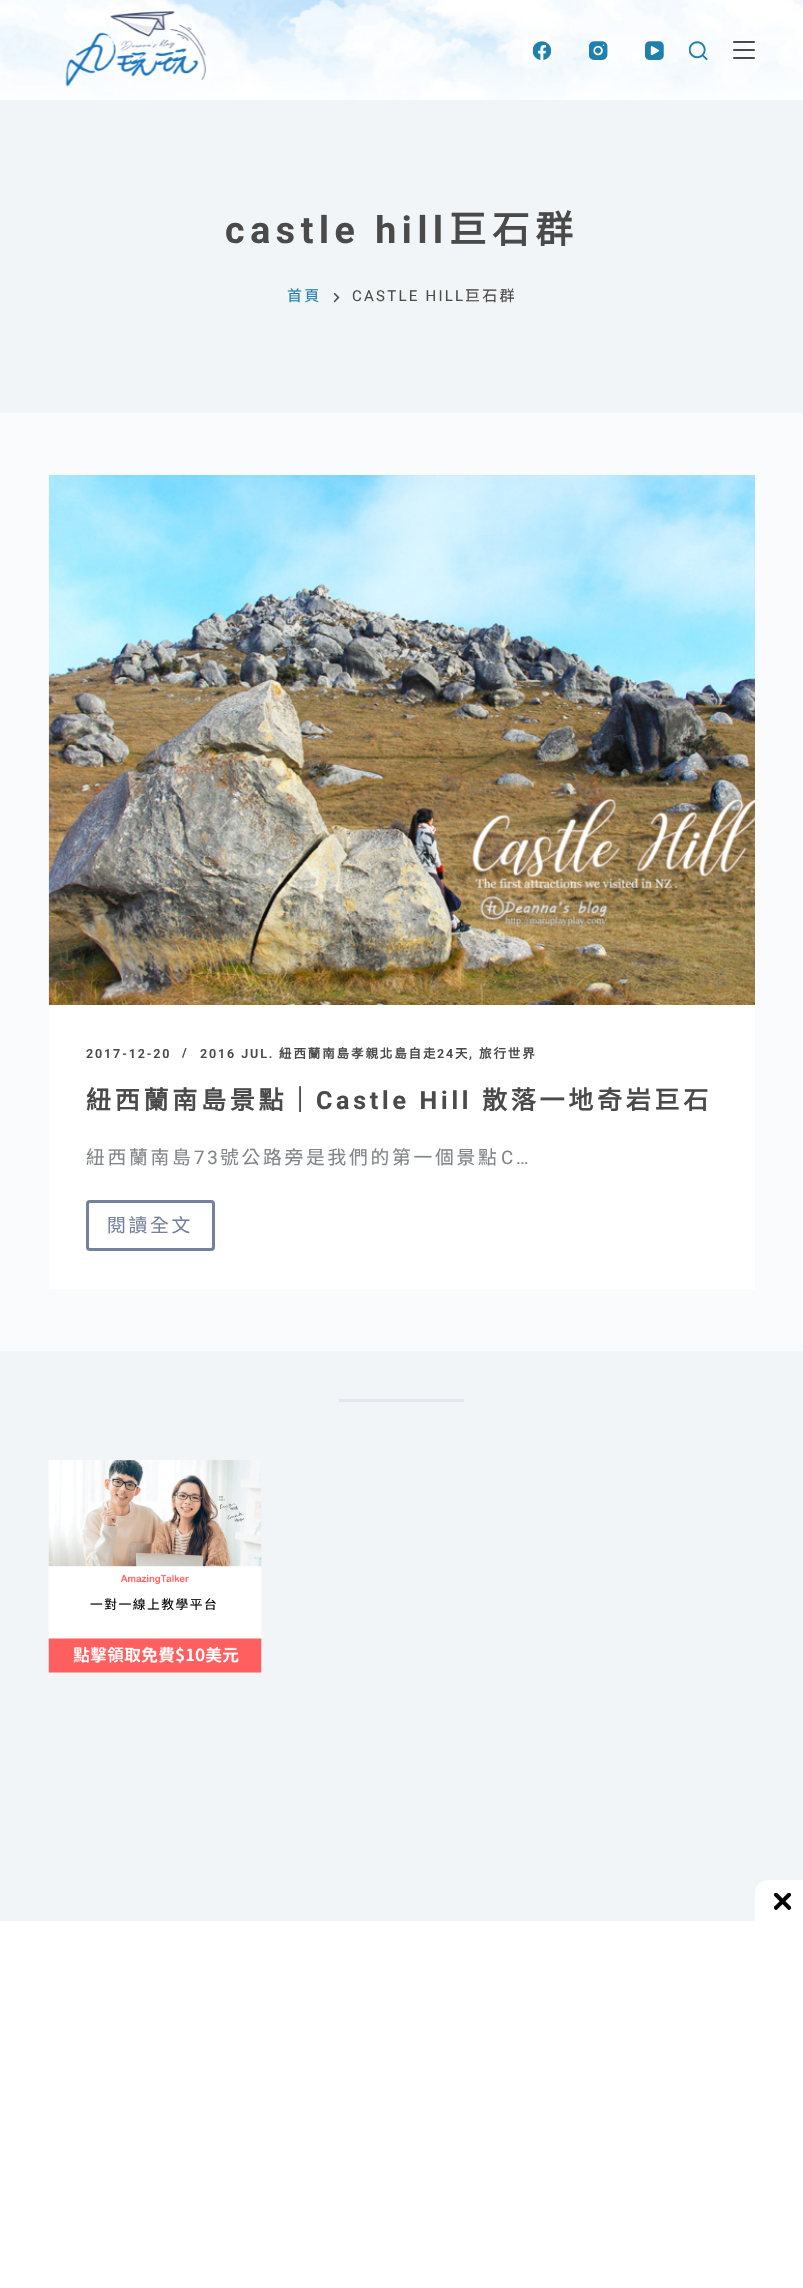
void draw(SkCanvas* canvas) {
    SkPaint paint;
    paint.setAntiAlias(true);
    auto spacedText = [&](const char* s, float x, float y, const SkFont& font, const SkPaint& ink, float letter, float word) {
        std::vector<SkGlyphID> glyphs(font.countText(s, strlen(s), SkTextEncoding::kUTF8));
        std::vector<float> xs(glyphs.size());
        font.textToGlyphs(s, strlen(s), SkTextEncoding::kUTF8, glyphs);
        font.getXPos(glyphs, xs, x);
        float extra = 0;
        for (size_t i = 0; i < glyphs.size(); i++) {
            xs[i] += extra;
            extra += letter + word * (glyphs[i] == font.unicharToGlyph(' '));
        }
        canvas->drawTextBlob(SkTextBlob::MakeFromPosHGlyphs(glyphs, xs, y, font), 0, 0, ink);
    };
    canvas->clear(0xFFFAFBFC);
    canvas->drawImageRect(SkImages::DeferredFromEncodedData(SkData::MakeFromFileName("img1.png")), SkRect::MakeXYWH(0, 0, 803, 100), SkSamplingOptions());
    canvas->drawImageRect(SkImages::DeferredFromEncodedData(SkData::MakeFromFileName("img2.png")), SkRect::MakeXYWH(65, 11, 141, 76), SkSamplingOptions());
    canvas->drawImageRect(SkImages::DeferredFromEncodedData(SkData::MakeFromFileName("img3.png")), SkRect::MakeXYWH(533, 41, 18, 19), SkSamplingOptions());
    canvas->drawImageRect(SkImages::DeferredFromEncodedData(SkData::MakeFromFileName("img4.png")), SkRect::MakeXYWH(589, 41, 19, 19), SkSamplingOptions());
    canvas->drawImageRect(SkImages::DeferredFromEncodedData(SkData::MakeFromFileName("img5.png")), SkRect::MakeXYWH(645, 41, 19, 19), SkSamplingOptions());
    canvas->drawImageRect(SkImages::DeferredFromEncodedData(SkData::MakeFromFileName("img6.png")), SkRect::MakeXYWH(689, 41, 19, 19), SkSamplingOptions());
    paint.setColor(0xFF4A4A4A);
    canvas->drawRoundRect(SkRect::MakeXYWH(733, 41, 22, 2), 1, 1, paint);
    canvas->drawRoundRect(SkRect::MakeXYWH(733, 49, 22, 2), 1, 1, paint);
    canvas->drawRoundRect(SkRect::MakeXYWH(733, 57, 22, 2), 1, 1, paint);
    paint.setColor(0xFFF2F5F7);
    canvas->drawRect(SkRect::MakeXYWH(0, 100, 803, 313), paint);
    SkFont font1(fontMgr->matchFamilyStyle("Roboto", SkFontStyle::Bold()), 37.5f);
    font1.setSubpixel(true);
    paint.setColor(0xFF4A4A4A);
    spacedText("castle hill", 225, 243, font1, paint, 5.6f, 0);
    SkFont font2(fontMgr->matchFamilyStyle("Noto Sans CJK TC", SkFontStyle::Bold()), 37.5f);
    font2.setSubpixel(true);
    spacedText("巨石群", 449, 243, font2, paint, 5.6f, 0);
    SkFont font3(fontMgr->matchFamilyStyle("Noto Sans CJK TC", SkFontStyle::Normal()), 15);
    font3.setSubpixel(true);
    paint.setColor(0xFF2080AD);
    spacedText("首頁", 287, 301, font3, paint, 2.25f, 0);
    canvas->drawImageRect(SkImages::DeferredFromEncodedData(SkData::MakeFromFileName("img7.png")), SkRect::MakeXYWH(333, 293, 7, 10), SkSamplingOptions());
    SkFont font4(fontMgr->matchFamilyStyle("Roboto", SkFontStyle::Normal()), 15);
    font4.setSubpixel(true);
    paint.setColor(0xFF4A4A4A);
    spacedText("CASTLE HILL", 352, 301, font4, paint, 2.25f, 0);
    spacedText("巨石群", 465, 301, font3, paint, 2.25f, 0);
    paint.setColor(0xFFFFFFFF);
    canvas->drawRect(SkRect::MakeXYWH(49, 1005, 706, 284), paint);
    canvas->drawImageRect(SkImages::DeferredFromEncodedData(SkData::MakeFromFileName("img8.png")), SkRect::MakeXYWH(48, 475, 707, 530), SkSamplingOptions());
    SkFont font5(fontMgr->matchFamilyStyle("Roboto", SkFontStyle(600, SkFontStyle::kNormal_Width, SkFontStyle::kUpright_Slant)), 12.5f);
    font5.setSubpixel(true);
    paint.setColor(0xFF4A4A4A);
    spacedText("2017-12-20", 86, 1058, font5, paint, 1.9f, 0);
    spacedText("/", 182, 1057, font5, paint, 1.9f, 0);
    spacedText("2016 JUL.", 200, 1058, font5, paint, 1.9f, 0);
    SkFont font6(fontMgr->matchFamilyStyle("Noto Sans CJK TC", SkFontStyle::Bold()), 12.5f);
    font6.setSubpixel(true);
    spacedText("紐西蘭南島孝親北島自走", 279, 1058, font6, paint, 1.9f, 0);
    spacedText("24", 437, 1058, font5, paint, 1.9f, 0);
    spacedText("天", 455, 1058, font6, paint, 1.9f, 0);
    spacedText("旅行世界", 479, 1058, font6, paint, 1.9f, 0);
    spacedText(",", 469, 1058, font5, paint, 1.9f, 0);
    SkFont font7(fontMgr->matchFamilyStyle("Noto Sans CJK TC", SkFontStyle::Bold()), 25);
    font7.setSubpixel(true);
    spacedText("紐西蘭南島景點｜", 86, 1109, font7, paint, 3.75f, 0);
    SkFont font8(fontMgr->matchFamilyStyle("Roboto", SkFontStyle::Bold()), 25);
    font8.setSubpixel(true);
    spacedText("Castle Hill", 316, 1109, font8, paint, 3.75f, 0);
    spacedText("散落一地奇岩巨石", 482, 1109, font7, paint, 3.75f, 0);
    SkFont font9(fontMgr->matchFamilyStyle("Noto Sans CJK TC", SkFontStyle::Normal()), 18.75f);
    font9.setSubpixel(true);
    paint.setColor(0xFF828487);
    spacedText("紐西蘭南島", 86, 1164, font9, paint, 2.75f, 0);
    SkFont font10(fontMgr->matchFamilyStyle("Roboto", SkFontStyle::Normal()), 18.75f);
    font10.setSubpixel(true);
    spacedText("73", 194, 1164, font10, paint, 2.75f, 0);
    spacedText("號公路旁是我們的第一個景點", 220, 1164, font9, paint, 2.75f, 0);
    spacedText("C…", 501, 1164, font10, paint, 2.75f, 0);
    paint.setStyle(SkPaint::kStroke_Style);
    paint.setStrokeWidth(3);
    paint.setColor(0xFF75809C);
    canvas->drawRoundRect(SkRect::MakeXYWH(87.5f, 1201.5f, 126, 48), 2.5f, 2.5f, paint);
    paint.setStyle(SkPaint::kFill_Style);
    spacedText("閱讀全文", 107, 1232, font9, paint, 2.75f, 0);
    paint.setColor(0xFFF2F5F7);
    canvas->drawRect(SkRect::MakeXYWH(0, 1351, 803, 570), paint);
    paint.setColor(0xFFE1E8ED);
    canvas->drawRect(SkRect::MakeXYWH(339, 1399, 125, 3), paint);
    canvas->drawImageRect(SkImages::DeferredFromEncodedData(SkData::MakeFromFileName("img9.png")), SkRect::MakeXYWH(48, 1460, 214, 213), SkSamplingOptions());
    SkFont font11(fontMgr->matchFamilyStyle("Noto Sans CJK TC", SkFontStyle::Normal()), 12.75f);
    font11.setSubpixel(true);
    paint.setColor(0xFF000000);
    spacedText("一對一線上教學平台", 90, 1609, font11, paint, 1.5f, 0);
    paint.setColor(0xFFFFFFFF);
    canvas->drawRect(SkRect::MakeXYWH(0, 1921, 803, 367), paint);
    canvas->drawPath(SkPathBuilder().moveTo(768, 1880).lineTo(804, 1880).lineTo(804, 1926).lineTo(755, 1926).lineTo(755, 1893).cubicTo(755, 1886, 761, 1880, 768, 1880).close().detach(), paint);
    canvas->drawImageRect(SkImages::DeferredFromEncodedData(SkData::MakeFromFileName("img10.png")), SkRect::MakeXYWH(774, 1893, 17, 17), SkSamplingOptions());
}
